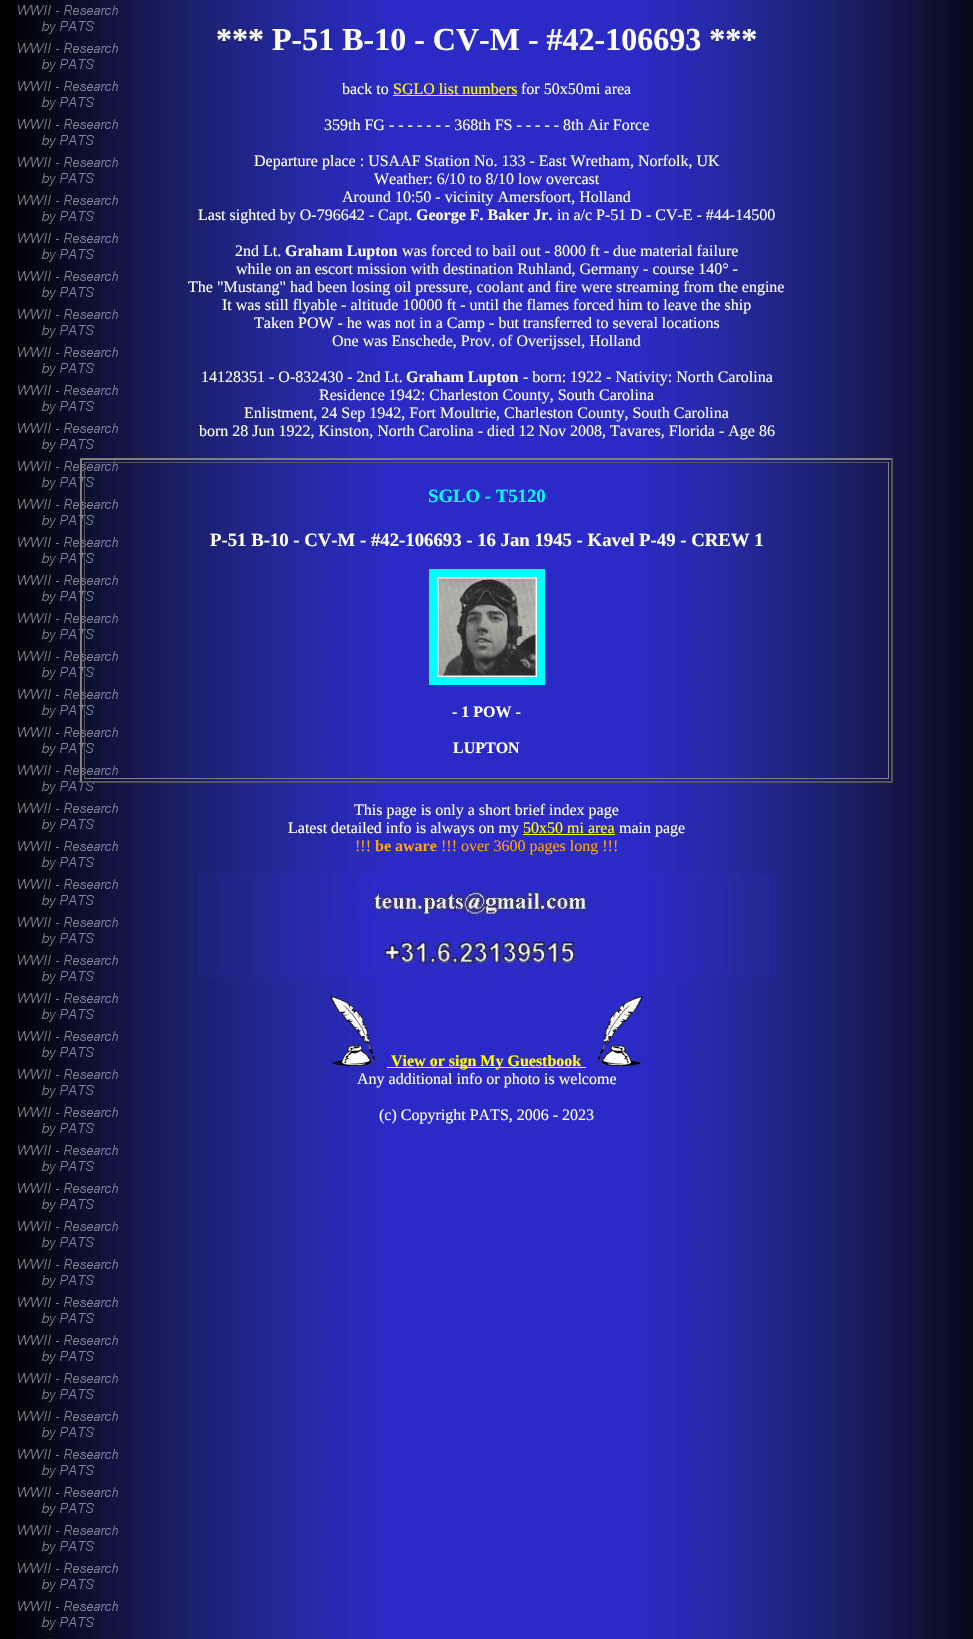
void draw(SkCanvas* canvas) {
    SkPaint paint;
    paint.setAntiAlias(true);
    canvas->clear(0xFFFFFFFF);
    canvas->drawImageRect(SkImages::DeferredFromEncodedData(SkData::MakeFromFileName("img1.png")), SkRect::MakeXYWH(0, 0, 973, 1639), SkSamplingOptions());
    SkFont font1(fontMgr->matchFamilyStyle("Liberation Serif", SkFontStyle::Bold()), 32);
    font1.setSubpixel(true);
    paint.setColor(0xFFFFFFFF);
    canvas->drawString("*** P-51 B-10 - CV-M - #42-106693 ***", 216, 50, font1, paint);
    SkFont font2(fontMgr->matchFamilyStyle("Liberation Serif", SkFontStyle::Normal()), 16);
    font2.setSubpixel(true);
    canvas->drawString("back to", 342, 94, font2, paint);
    paint.setColor(0xFFFFFF00);
    canvas->drawString("SGLO list numbers", 393, 94, font2, paint);
    canvas->drawRect(SkRect::MakeXYWH(393, 95, 124, 1), paint);
    paint.setColor(0xFFFFFFFF);
    canvas->drawString("for 50x50mi area", 521, 94, font2, paint);
    canvas->drawString("359th FG - - - - - - - 368th FS - - - - - 8th Air Force", 324, 130, font2, paint);
    canvas->drawString("Departure place : USAAF Station No. 133 - East Wretham, Norfolk, UK", 254, 166, font2, paint);
    canvas->drawString("Weather: 6/10 to 8/10 low overcast", 374, 184, font2, paint);
    canvas->drawString("Around 10:50 - vicinity Amersfoort, Holland", 342, 202, font2, paint);
    canvas->drawString("Last sighted by O-796642 - Capt.", 198, 220, font2, paint);
    SkFont font3(fontMgr->matchFamilyStyle("Liberation Serif", SkFontStyle::Bold()), 16);
    font3.setSubpixel(true);
    canvas->drawString("George F. Baker Jr.", 416, 220, font3, paint);
    canvas->drawString("in a/c P-51 D - CV-E - #44-14500", 557, 220, font2, paint);
    canvas->drawString("2nd Lt.", 235, 256, font2, paint);
    canvas->drawString("Graham Lupton", 285, 256, font3, paint);
    canvas->drawString("was forced to bail out - 8000 ft - due material failure", 402, 256, font2, paint);
    canvas->drawString("while on an escort mission with destination Ruhland, Germany - course 140° -", 236, 274, font2, paint);
    canvas->drawString("The \"Mustang\" had been losing oil pressure, coolant and fire were streaming from the engine", 188, 292, font2, paint);
    canvas->drawString("It was still flyable - altitude 10000 ft - until the flames forced him to leave the ship", 222, 310, font2, paint);
    canvas->drawString("Taken POW - he was not in a Camp - but transferred to several locations", 254, 328, font2, paint);
    canvas->drawString("One was Enschede, Prov. of Overijssel, Holland", 332, 346, font2, paint);
    canvas->drawString("14128351 - O-832430 - 2nd Lt.", 201, 382, font2, paint);
    canvas->drawString("Graham Lupton", 406, 382, font3, paint);
    canvas->drawString("- born: 1922 - Nativity: North Carolina", 523, 382, font2, paint);
    canvas->drawString("Residence 1942: Charleston County, South Carolina", 319, 400, font2, paint);
    canvas->drawString("Enlistment, 24 Sep 1942, Fort Moultrie, Charleston County, South Carolina", 244, 418, font2, paint);
    canvas->drawString("born 28 Jun 1922, Kinston, North Carolina - died 12 Nov 2008, Tavares, Florida - Age 86", 199, 436, font2, paint);
    paint.setColor(0xFF808080);
    canvas->drawPath(SkPathBuilder().moveTo(80, 458).lineTo(893, 458).lineTo(891, 460).lineTo(82, 460).close().detach(), paint);
    paint.setColor(0xFF555555);
    canvas->drawPath(SkPathBuilder().moveTo(893, 458).lineTo(893, 783).lineTo(891, 781).lineTo(891, 460).close().detach(), paint);
    canvas->drawPath(SkPathBuilder().moveTo(893, 783).lineTo(80, 783).lineTo(82, 781).lineTo(891, 781).close().detach(), paint);
    paint.setColor(0xFF808080);
    canvas->drawPath(SkPathBuilder().moveTo(80, 783).lineTo(80, 458).lineTo(82, 460).lineTo(82, 781).close().detach(), paint);
    paint.setColor(0xFF555555);
    canvas->drawRect(SkRect::MakeXYWH(84, 462, 805, 1), paint);
    paint.setColor(0xFF808080);
    canvas->drawRect(SkRect::MakeXYWH(888, 462, 1, 317), paint);
    canvas->drawRect(SkRect::MakeXYWH(84, 778, 805, 1), paint);
    paint.setColor(0xFF555555);
    canvas->drawRect(SkRect::MakeXYWH(84, 462, 1, 317), paint);
    SkFont font4(fontMgr->matchFamilyStyle("Liberation Serif", SkFontStyle::Bold()), 18.75f);
    font4.setSubpixel(true);
    paint.setColor(0xFF00FFFF);
    canvas->drawString("SGLO - T5120", 428, 502, font4, paint);
    paint.setColor(0xFFFFFFFF);
    canvas->drawString("P-51 B-10 - CV-M - #42-106693 - 16 Jan 1945 - Kavel P-49 - CREW 1", 210, 546, font4, paint);
    paint.setStyle(SkPaint::kStroke_Style);
    paint.setStrokeWidth(8);
    paint.setColor(0xFF00FFFF);
    canvas->drawRect(SkRect::MakeXYWH(433, 573, 108, 108), paint);
    canvas->drawImageRect(SkImages::DeferredFromEncodedData(SkData::MakeFromFileName("img2.png")), SkRect::MakeXYWH(437, 577, 100, 100), SkSamplingOptions());
    paint.setStyle(SkPaint::kFill_Style);
    paint.setColor(0xFFFFFFFF);
    canvas->drawString("- 1 POW -", 452, 717, font3, paint);
    canvas->drawString("LUPTON", 453, 753, font3, paint);
    canvas->drawString("This page is only a short brief index page", 354, 815, font2, paint);
    canvas->drawString("Latest detailed info is always on my", 288, 833, font2, paint);
    paint.setColor(0xFFFFFF00);
    canvas->drawString("50x50 mi area", 523, 833, font2, paint);
    canvas->drawRect(SkRect::MakeXYWH(523, 834, 92, 1), paint);
    paint.setColor(0xFFFFFFFF);
    canvas->drawString("main page", 619, 833, font2, paint);
    paint.setColor(0xFFFFA500);
    canvas->drawString("!!!", 355, 851, font2, paint);
    canvas->drawString("be aware", 375, 851, font3, paint);
    canvas->drawString("!!! over 3600 pages long !!!", 441, 851, font2, paint);
    canvas->drawImageRect(SkImages::DeferredFromEncodedData(SkData::MakeFromFileName("img3.png")), SkRect::MakeXYWH(197, 873, 580, 105), SkSamplingOptions());
    canvas->drawImageRect(SkImages::DeferredFromEncodedData(SkData::MakeFromFileName("img4.png")), SkRect::MakeXYWH(330, 996, 45, 70), SkSamplingOptions());
    paint.setColor(0xFFFFFF00);
    canvas->drawRect(SkRect::MakeXYWH(387, 1067, 199, 1), paint);
    canvas->drawString("View or sign My Guestbook", 391, 1066, font3, paint);
    canvas->drawImageRect(SkImages::DeferredFromEncodedData(SkData::MakeFromFileName("img5.png")), SkRect::MakeXYWH(598, 996, 45, 70), SkSamplingOptions());
    paint.setColor(0xFFFFFFFF);
    canvas->drawString("Any additional info or photo is welcome", 357, 1084, font2, paint);
    canvas->drawString("(c) Copyright PATS, 2006 - 2023", 379, 1120, font2, paint);
}
